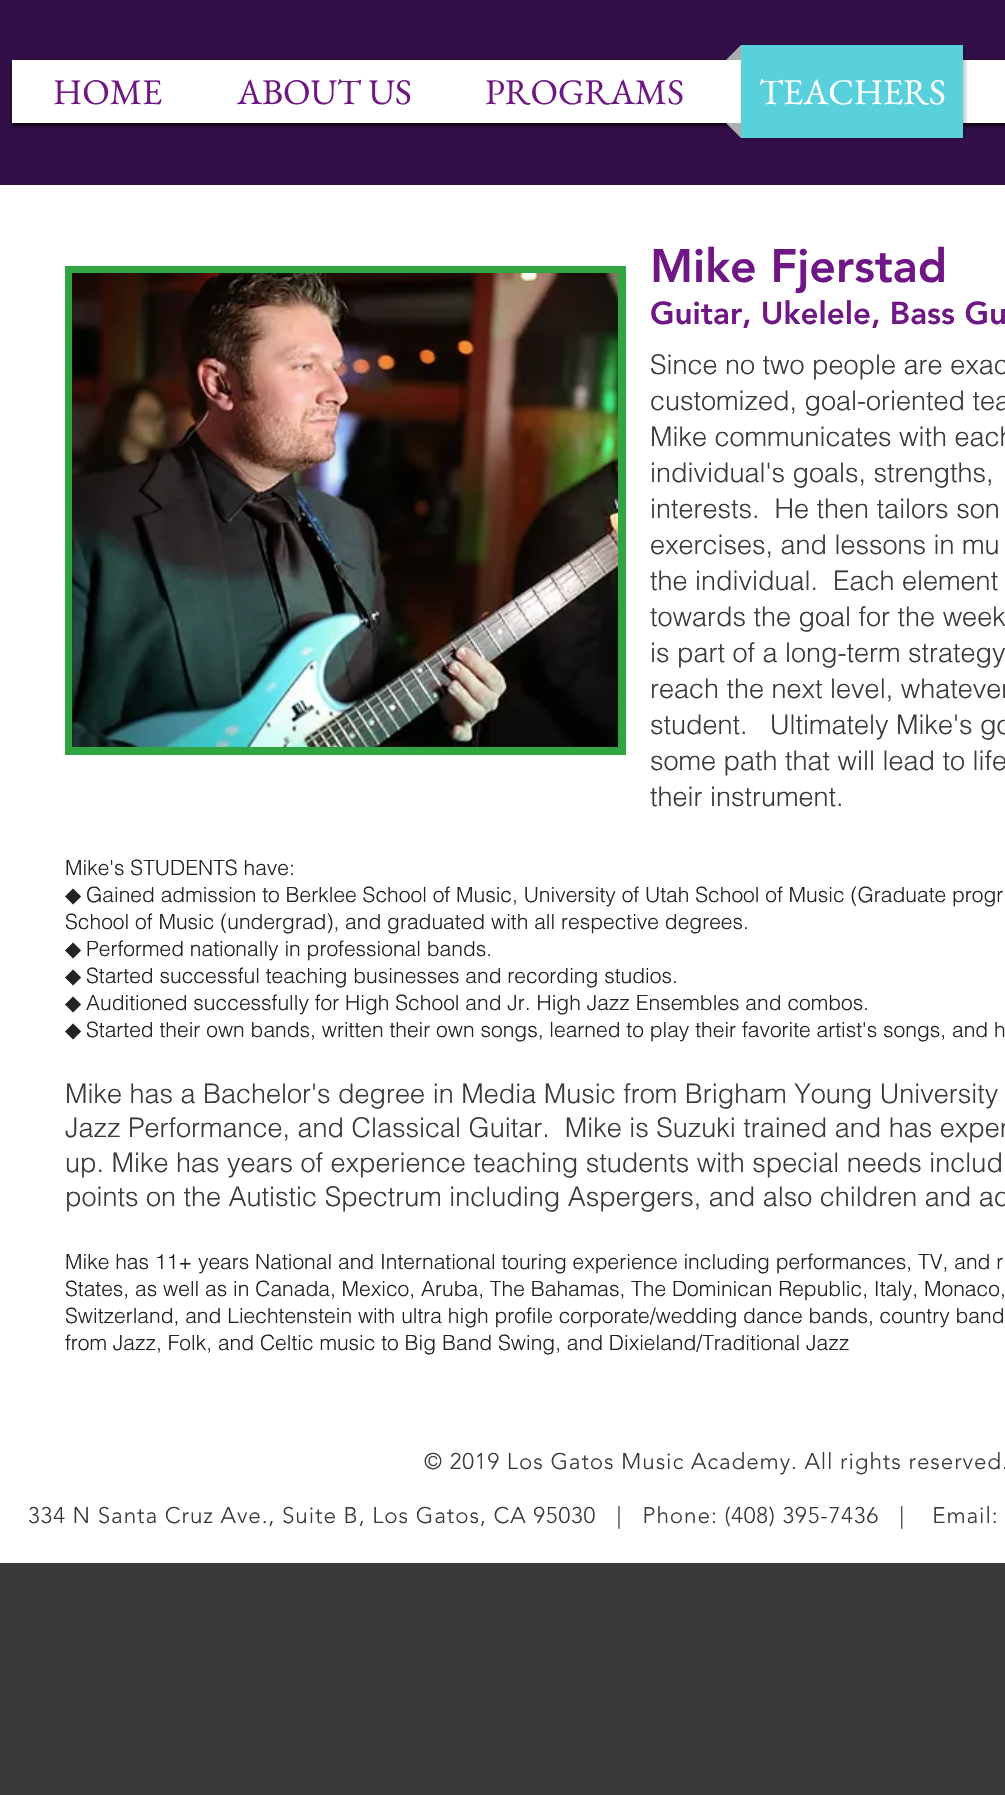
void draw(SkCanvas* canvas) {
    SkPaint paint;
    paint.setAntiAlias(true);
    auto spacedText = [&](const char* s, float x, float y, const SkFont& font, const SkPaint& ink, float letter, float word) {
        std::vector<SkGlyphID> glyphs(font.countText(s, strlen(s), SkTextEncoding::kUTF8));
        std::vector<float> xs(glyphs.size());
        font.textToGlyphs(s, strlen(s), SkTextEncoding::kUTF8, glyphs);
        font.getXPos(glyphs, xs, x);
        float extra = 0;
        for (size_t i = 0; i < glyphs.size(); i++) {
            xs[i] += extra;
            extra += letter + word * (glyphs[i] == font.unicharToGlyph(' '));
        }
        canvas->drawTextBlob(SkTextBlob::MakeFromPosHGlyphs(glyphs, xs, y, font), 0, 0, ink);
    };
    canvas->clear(0xFF3B3A3A);
    paint.setColor(0xFF321047);
    canvas->drawRect(SkRect::MakeXYWH(0, 0, 1005, 185), paint);
    paint.setColor(0xB3000000);
    paint.setMaskFilter(SkMaskFilter::MakeBlur(kNormal_SkBlurStyle, 2));
    canvas->drawRect(SkRect::MakeXYWH(12, 63, 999, 63), paint);
    paint.setMaskFilter(nullptr);
    paint.setColor(0xFFFFFFFF);
    canvas->drawRect(SkRect::MakeXYWH(12, 60, 993, 63), paint);
    SkFont font1(fontMgr->matchFamilyStyle("EB Garamond", SkFontStyle::Normal()), 36);
    font1.setSubpixel(true);
    paint.setColor(0xFF6F1885);
    canvas->drawString("HOME", 53, 104, font1, paint);
    canvas->drawString("ABOUT US", 237, 104, font1, paint);
    canvas->drawString("PROGRAMS", 485, 104, font1, paint);
    paint.setColor(0x33000000);
    paint.setMaskFilter(SkMaskFilter::MakeBlur(kNormal_SkBlurStyle, 1.5f));
    canvas->drawRect(SkRect::MakeXYWH(744, 45, 222, 93), paint);
    paint.setMaskFilter(nullptr);
    paint.setColor(0xFFADADAD);
    canvas->drawPath(SkPathBuilder().moveTo(741, 60).lineTo(726, 60).lineTo(741, 45).close().detach(), paint);
    paint.setColor(0xFF59D1DD);
    canvas->drawRect(SkRect::MakeXYWH(741, 45, 222, 93), paint);
    paint.setColor(0xFFADADAD);
    canvas->drawPath(SkPathBuilder().moveTo(726, 123).lineTo(741, 123).lineTo(741, 138).close().detach(), paint);
    paint.setColor(0xFFFFFFFF);
    canvas->drawString("TEACHERS", 759, 104, font1, paint);
    canvas->drawRect(SkRect::MakeXYWH(0, 185, 1005, 1378), paint);
    paint.setColor(0xFF30A642);
    canvas->drawRect(SkRect::MakeXYWH(65, 266, 561, 489), paint);
    canvas->drawImageRect(SkImages::DeferredFromEncodedData(SkData::MakeFromFileName("img1.png")), SkRect::MakeXYWH(72, 273, 546, 474), SkSamplingOptions());
    SkFont font2(fontMgr->matchFamilyStyle("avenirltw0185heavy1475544", SkFontStyle(900, SkFontStyle::kNormal_Width, SkFontStyle::kUpright_Slant)), 46.5f);
    font2.setSubpixel(true);
    paint.setColor(0xFF6F1885);
    canvas->drawString("Mike Fjerstad", 650, 282, font2, paint);
    SkFont font3(fontMgr->matchFamilyStyle("avenirltw0185heavy1475544", SkFontStyle(900, SkFontStyle::kNormal_Width, SkFontStyle::kUpright_Slant)), 31.5f);
    font3.setSubpixel(true);
    canvas->drawString("Guitar, Ukelele, Bass Gu", 650, 324, font3, paint);
    SkFont font4(fontMgr->matchFamilyStyle("helvetica", SkFontStyle(300, SkFontStyle::kNormal_Width, SkFontStyle::kUpright_Slant)), 27);
    font4.setSubpixel(true);
    paint.setColor(0xFF3B3A3A);
    canvas->drawString("Since no two people are exac", 650, 374, font4, paint);
    canvas->drawString("customized, goal-oriented tea", 650, 410, font4, paint);
    canvas->drawString("Mike communicates with each", 650, 446, font4, paint);
    canvas->drawString("individual's goals, strengths,", 650, 482, font4, paint);
    canvas->drawString("interests.  He then tailors son", 650, 518, font4, paint);
    canvas->drawString("exercises, and lessons in mu", 650, 554, font4, paint);
    canvas->drawString("the individual.  Each element", 650, 590, font4, paint);
    canvas->drawString("towards the goal for the week", 650, 626, font4, paint);
    canvas->drawString("is part of a long-term strategy", 650, 662, font4, paint);
    canvas->drawString("reach the next level, whatever", 650, 698, font4, paint);
    canvas->drawString("student.   Ultimately Mike's go", 650, 734, font4, paint);
    canvas->drawString("some path that will lead to life", 650, 770, font4, paint);
    canvas->drawString("their instrument.", 650, 806, font4, paint);
    SkFont font5(fontMgr->matchFamilyStyle("helvetica", SkFontStyle(300, SkFontStyle::kNormal_Width, SkFontStyle::kUpright_Slant)), 21);
    font5.setSubpixel(true);
    paint.setColor(0xFF232323);
    canvas->drawString("Mike's STUDENTS have:", 65, 875, font5, paint);
    SkFont font6(fontMgr->matchFamilyStyle("DejaVu Sans", SkFontStyle::Normal()), 21);
    font6.setSubpixel(true);
    canvas->drawString("◆", 65, 902, font6, paint);
    canvas->drawString("Gained admission to Berklee School of Music, University of Utah School of Music (Graduate progr", 86, 902, font5, paint);
    canvas->drawString("School of Music (undergrad), and graduated with all respective degrees.", 65, 929, font5, paint);
    canvas->drawString("◆", 65, 956, font6, paint);
    canvas->drawString("Performed nationally in professional bands.", 86, 956, font5, paint);
    canvas->drawString("◆", 65, 983, font6, paint);
    canvas->drawString("Started successful teaching businesses and recording studios.", 86, 983, font5, paint);
    canvas->drawString("◆", 65, 1010, font6, paint);
    canvas->drawString("Auditioned successfully for High School and Jr. High Jazz Ensembles and combos.", 86, 1010, font5, paint);
    canvas->drawString("◆", 65, 1037, font6, paint);
    canvas->drawString("Started their own bands, written their own songs, learned to play their favorite artist's songs, and h", 86, 1037, font5, paint);
    paint.setColor(0xFF3B3A3A);
    canvas->drawString("Mike has a Bachelor's degree in Media Music from Brigham Young University", 65, 1103, font4, paint);
    canvas->drawString("Jazz Performance, and Classical Guitar.  Mike is Suzuki trained and has exper", 65, 1137, font4, paint);
    canvas->drawString("up. Mike has years of experience teaching students with special needs includ", 65, 1172, font4, paint);
    canvas->drawString("points on the Autistic Spectrum including Aspergers, and also children and ad", 65, 1206, font4, paint);
    paint.setColor(0xFF232323);
    canvas->drawString("Mike has 11+ years National and International touring experience including performances, TV, and r", 65, 1269, font5, paint);
    canvas->drawString("States, as well as in Canada, Mexico, Aruba, The Bahamas, The Dominican Republic, Italy, Monaco,", 65, 1296, font5, paint);
    canvas->drawString("Switzerland, and Liechtenstein with ultra high profile corporate/wedding dance bands, country band", 65, 1323, font5, paint);
    canvas->drawString("from Jazz, Folk, and Celtic music to Big Band Swing, and Dixieland/Traditional Jazz", 65, 1350, font5, paint);
    SkFont font7(fontMgr->matchFamilyStyle("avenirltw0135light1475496", SkFontStyle(300, SkFontStyle::kNormal_Width, SkFontStyle::kUpright_Slant)), 22.5f);
    font7.setSubpixel(true);
    paint.setColor(0xFF3B3A3A);
    spacedText("© 2019 Los Gatos Music Academy. All rights reserved.", 424, 1469, font7, paint, 0.9f, 0);
    spacedText("334 N Santa Cruz Ave., Suite B, Los Gatos, CA 95030   |   Phone: (408) 395-7436   |    Email:", 28, 1523, font7, paint, 0.9f, 0);
}
